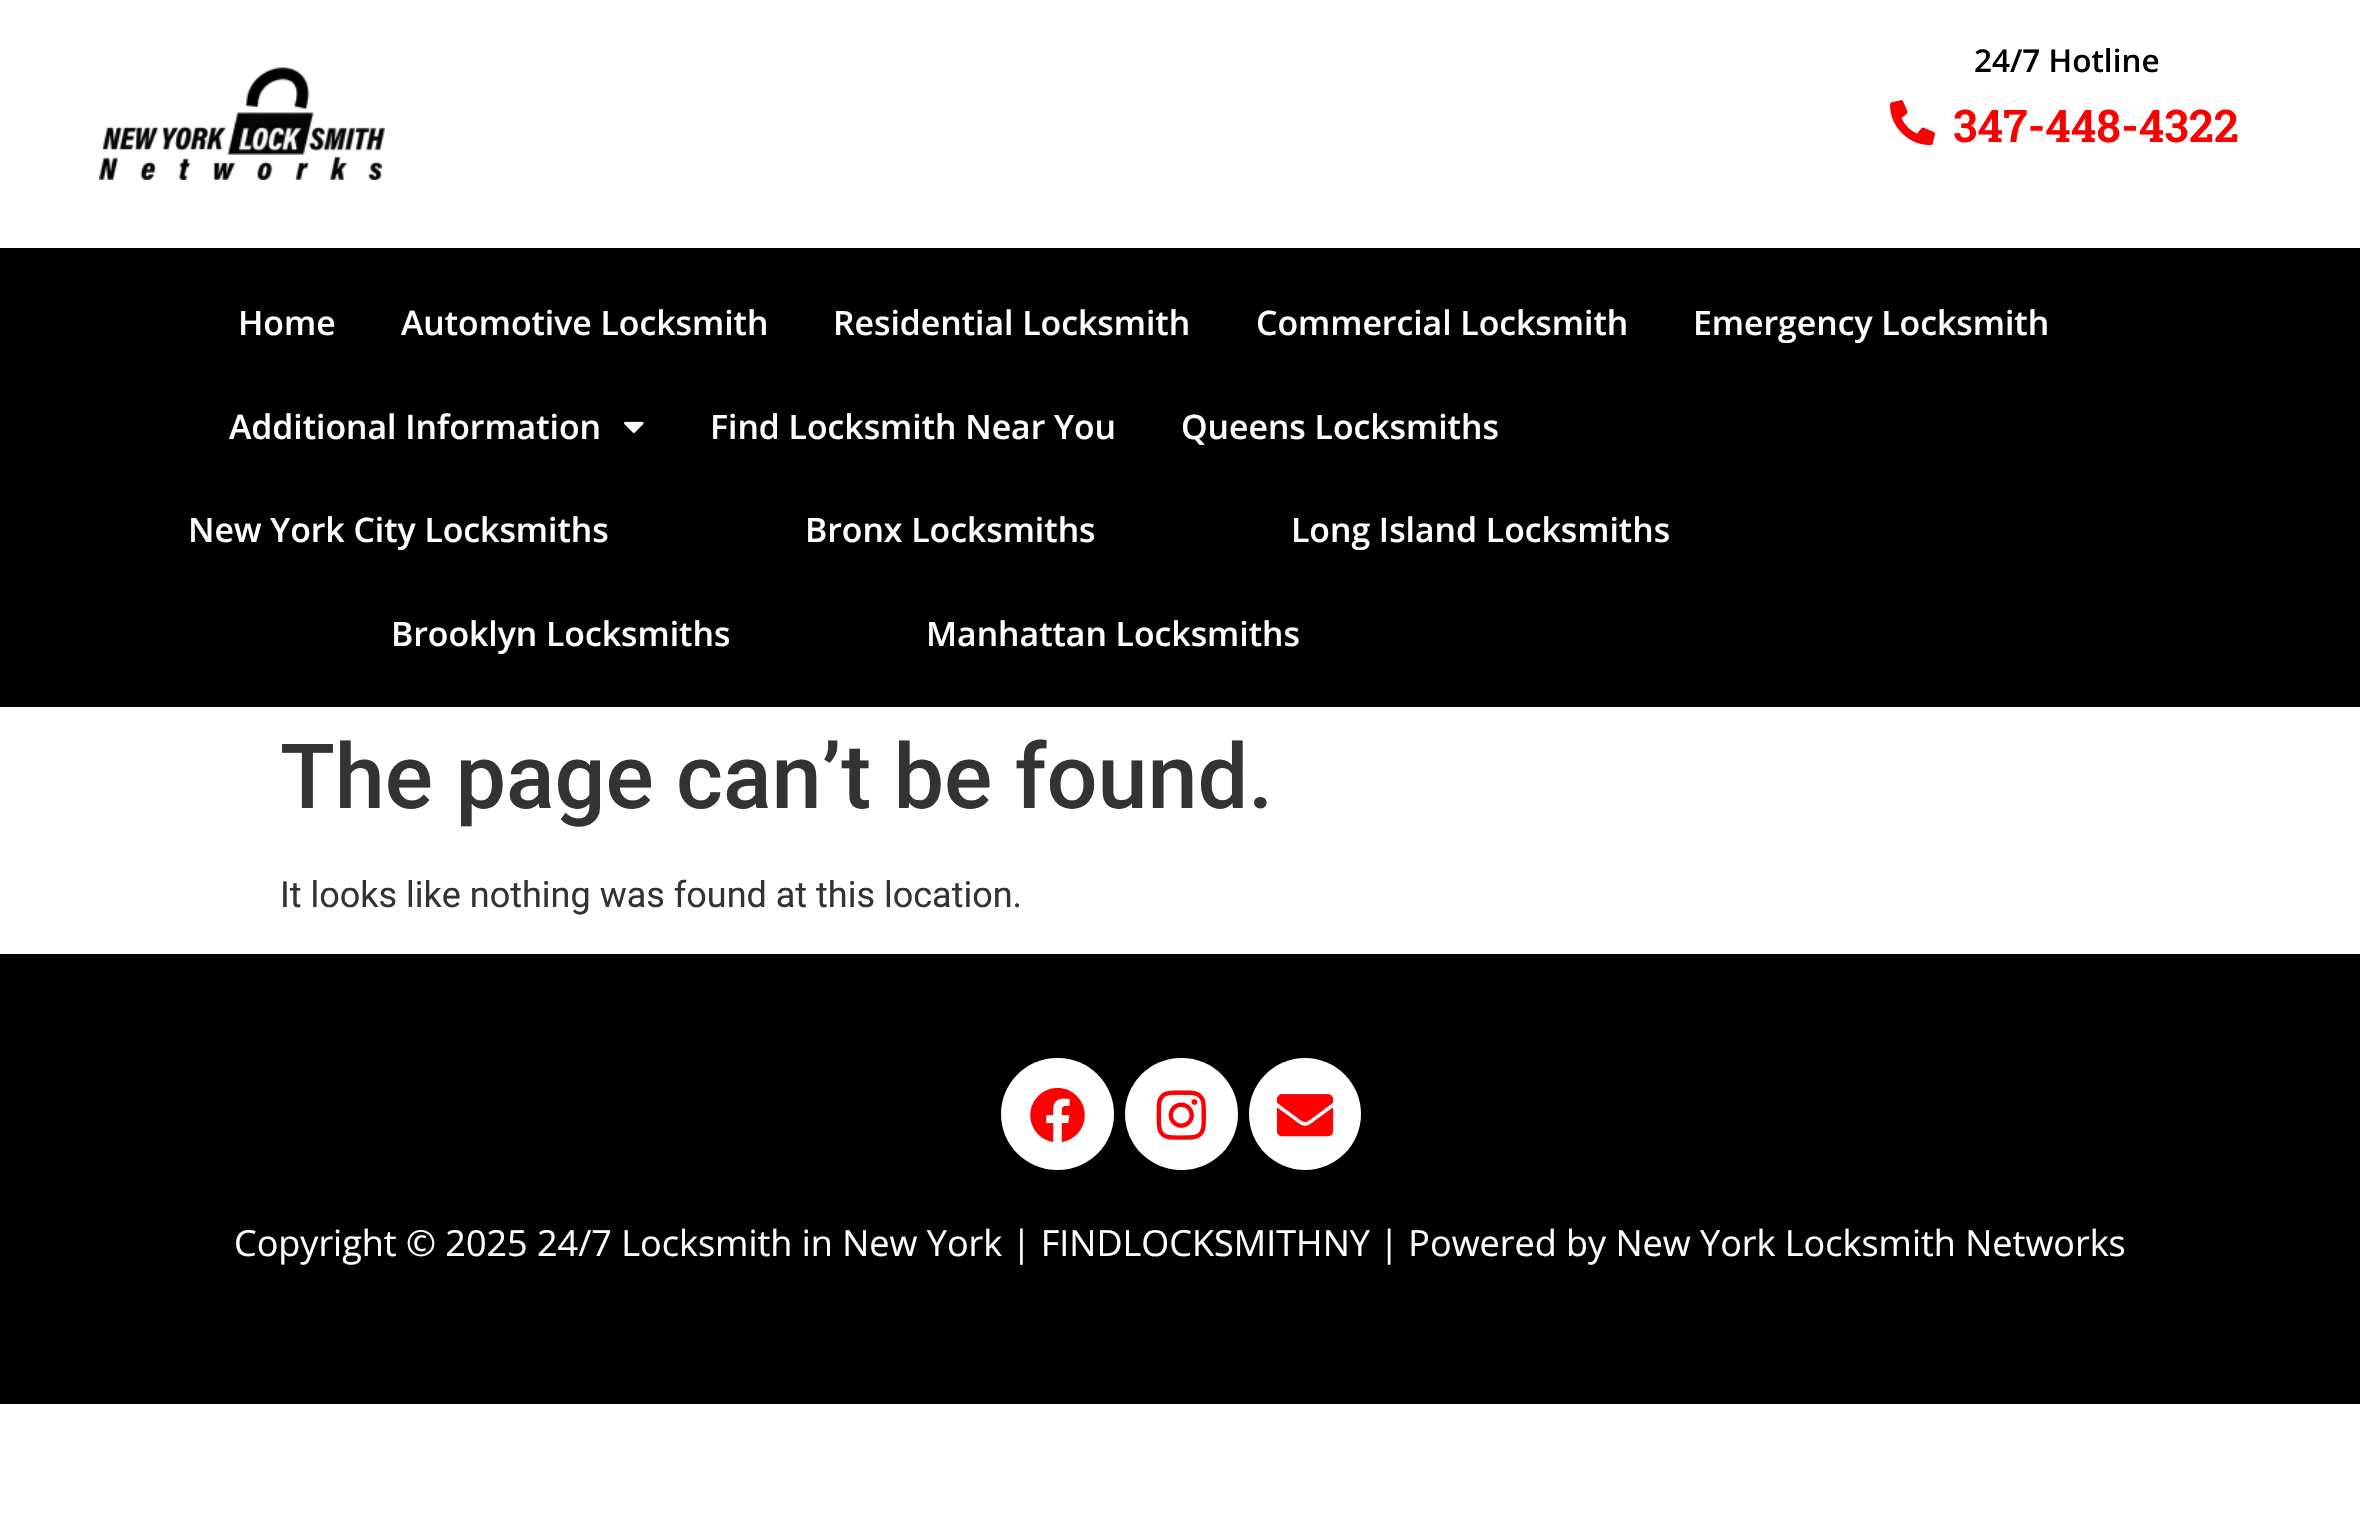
void draw(SkCanvas* canvas) {
    SkPaint paint;
    paint.setAntiAlias(true);
    canvas->clear(0xFFFFFFFF);
    canvas->drawImageRect(SkImages::DeferredFromEncodedData(SkData::MakeFromFileName("img1.png")), SkRect::MakeXYWH(99, 67, 286, 113), SkSamplingOptions());
    SkFont font1(fontMgr->matchFamilyStyle("Open Sans", SkFontStyle(600, SkFontStyle::kNormal_Width, SkFontStyle::kUpright_Slant)), 31.5f);
    font1.setSubpixel(true);
    paint.setColor(0xFF000000);
    canvas->drawString("24/7 Hotline", 1974, 72, font1, paint);
    canvas->drawImageRect(SkImages::DeferredFromEncodedData(SkData::MakeFromFileName("img2.png")), SkRect::MakeXYWH(1890, 100, 45, 46), SkSamplingOptions());
    SkFont font2(fontMgr->matchFamilyStyle("Roboto Slab", SkFontStyle(600, SkFontStyle::kNormal_Width, SkFontStyle::kUpright_Slant)), 45);
    font2.setSubpixel(true);
    paint.setColor(0xFFFB0000);
    canvas->drawString("347-448-4322", 1953, 142, font2, paint);
    paint.setColor(0xFF000000);
    canvas->drawRect(SkRect::MakeXYWH(0, 248, 2360, 459), paint);
    SkFont font3(fontMgr->matchFamilyStyle("Open Sans", SkFontStyle(600, SkFontStyle::kNormal_Width, SkFontStyle::kUpright_Slant)), 33.75f);
    font3.setSubpixel(true);
    paint.setColor(0xFFFFFFFF);
    canvas->drawString("Home", 238, 335, font3, paint);
    canvas->drawString("Automotive Locksmith", 401, 335, font3, paint);
    canvas->drawString("Residential Locksmith", 833, 335, font3, paint);
    canvas->drawString("Commercial Locksmith", 1256, 335, font3, paint);
    canvas->drawString("Emergency Locksmith", 1693, 335, font3, paint);
    canvas->drawString("Additional Information", 229, 439, font3, paint);
    canvas->drawImageRect(SkImages::DeferredFromEncodedData(SkData::MakeFromFileName("img3.png")), SkRect::MakeXYWH(624, 421, 20, 12), SkSamplingOptions());
    canvas->drawString("Find Locksmith Near You", 710, 439, font3, paint);
    canvas->drawString("Queens Locksmiths", 1181, 439, font3, paint);
    canvas->drawString("New York City Locksmiths", 188, 542, font3, paint);
    canvas->drawString("Bronx Locksmiths", 805, 542, font3, paint);
    canvas->drawString("Long Island Locksmiths", 1291, 542, font3, paint);
    canvas->drawString("Brooklyn Locksmiths", 391, 646, font3, paint);
    canvas->drawString("Manhattan Locksmiths", 926, 646, font3, paint);
    SkFont font4(fontMgr->matchFamilyStyle("Roboto", SkFontStyle(500, SkFontStyle::kNormal_Width, SkFontStyle::kUpright_Slant)), 90);
    font4.setSubpixel(true);
    paint.setColor(0xFF333333);
    canvas->drawString("The page can’t be found.", 280, 808, font4, paint);
    SkFont font5(fontMgr->matchFamilyStyle("Roboto", SkFontStyle::Normal()), 36);
    font5.setSubpixel(true);
    canvas->drawString("It looks like nothing was found at this location.", 280, 907, font5, paint);
    paint.setColor(0xFF000000);
    canvas->drawRect(SkRect::MakeXYWH(0, 954, 2360, 450), paint);
    paint.setColor(0xFFFFFFFF);
    canvas->drawRoundRect(SkRect::MakeXYWH(1001, 1058, 113, 112), 56, 56, paint);
    canvas->drawImageRect(SkImages::DeferredFromEncodedData(SkData::MakeFromFileName("img4.png")), SkRect::MakeXYWH(1030, 1087, 55, 55), SkSamplingOptions());
    canvas->drawRoundRect(SkRect::MakeXYWH(1125, 1058, 113, 112), 56, 56, paint);
    canvas->drawImageRect(SkImages::DeferredFromEncodedData(SkData::MakeFromFileName("img5.png")), SkRect::MakeXYWH(1156, 1090, 50, 50), SkSamplingOptions());
    canvas->drawCircle(1305, 1114, 56, paint);
    canvas->drawImageRect(SkImages::DeferredFromEncodedData(SkData::MakeFromFileName("img6.png")), SkRect::MakeXYWH(1276, 1094, 58, 43), SkSamplingOptions());
    SkFont font6(fontMgr->matchFamilyStyle("Open Sans", SkFontStyle::Normal()), 36);
    font6.setSubpixel(true);
    canvas->drawString("Copyright © 2025 24/7 Locksmith in New York | FINDLOCKSMITHNY | Powered by New York Locksmith Networks", 234, 1256, font6, paint);
}
